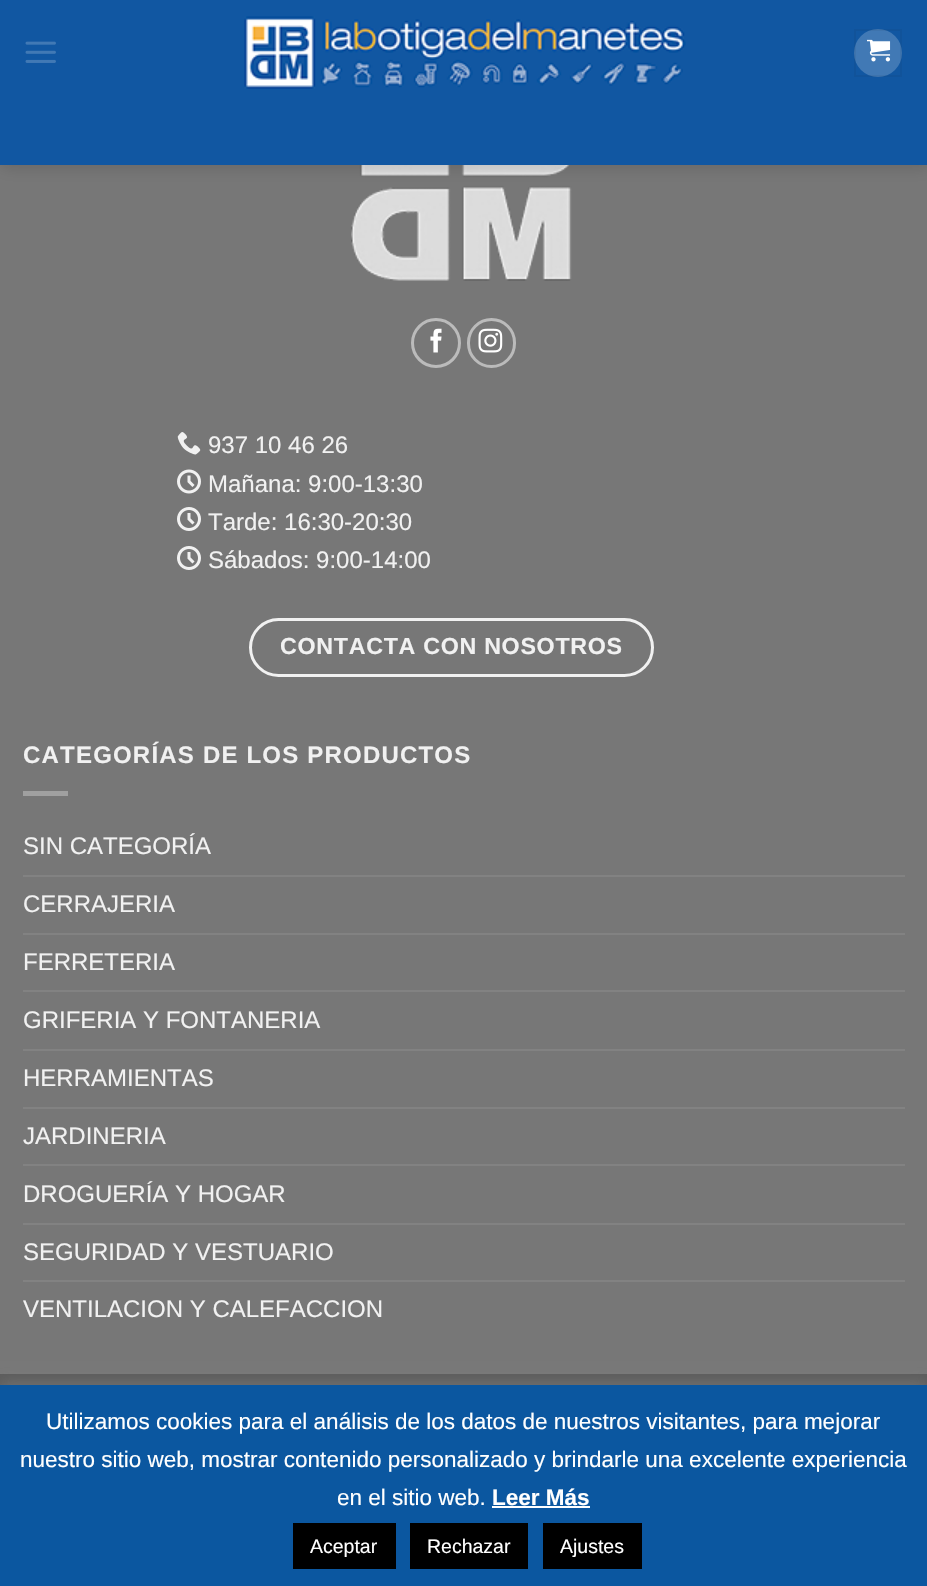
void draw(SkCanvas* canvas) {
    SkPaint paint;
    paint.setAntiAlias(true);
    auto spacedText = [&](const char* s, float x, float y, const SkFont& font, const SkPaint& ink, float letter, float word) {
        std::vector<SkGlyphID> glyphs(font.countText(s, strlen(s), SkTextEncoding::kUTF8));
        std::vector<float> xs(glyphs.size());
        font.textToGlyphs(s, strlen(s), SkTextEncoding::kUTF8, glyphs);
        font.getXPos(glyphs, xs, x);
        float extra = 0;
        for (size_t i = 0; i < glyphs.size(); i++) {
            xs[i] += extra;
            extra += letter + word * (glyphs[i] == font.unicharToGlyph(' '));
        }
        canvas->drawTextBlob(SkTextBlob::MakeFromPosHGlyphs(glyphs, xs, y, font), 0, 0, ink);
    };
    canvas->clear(0xFF777777);
    canvas->drawImageRect(SkImages::DeferredFromEncodedData(SkData::MakeFromFileName("img4.png")), SkRect::MakeXYWH(351, 165, 221, 116), SkSamplingOptions());
    paint.setColor(0x26000000);
    paint.setMaskFilter(SkMaskFilter::MakeBlur(kNormal_SkBlurStyle, 7.5f));
    canvas->drawRect(SkRect::MakeXYWH(2, 2, 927, 165), paint);
    paint.setMaskFilter(nullptr);
    paint.setColor(0xFF1157A2);
    canvas->drawRect(SkRect::MakeXYWH(0, 0, 927, 165), paint);
    canvas->drawImageRect(SkImages::DeferredFromEncodedData(SkData::MakeFromFileName("img1.png")), SkRect::MakeXYWH(25, 41, 31, 22), SkSamplingOptions());
    canvas->drawImageRect(SkImages::DeferredFromEncodedData(SkData::MakeFromFileName("img2.png")), SkRect::MakeXYWH(244, 16, 442, 73), SkSamplingOptions());
    paint.setColor(0xFF4179B5);
    canvas->drawCircle(878, 53, 24, paint);
    paint.setStyle(SkPaint::kStroke_Style);
    paint.setStrokeWidth(2);
    paint.setColor(0x0D000000);
    canvas->drawRect(SkRect::MakeXYWH(855, 30, 46, 46), paint);
    canvas->drawImageRect(SkImages::DeferredFromEncodedData(SkData::MakeFromFileName("img3.png")), SkRect::MakeXYWH(867, 39, 24, 23), SkSamplingOptions());
    paint.setStrokeWidth(3);
    paint.setColor(0xFFBBBBBB);
    canvas->drawCircle(436, 343, 23.5f, paint);
    canvas->drawImageRect(SkImages::DeferredFromEncodedData(SkData::MakeFromFileName("img5.png")), SkRect::MakeXYWH(430, 328, 12, 25), SkSamplingOptions());
    canvas->drawRoundRect(SkRect::MakeXYWH(468.5f, 319.5f, 46, 47), 23, 23, paint);
    canvas->drawImageRect(SkImages::DeferredFromEncodedData(SkData::MakeFromFileName("img6.png")), SkRect::MakeXYWH(478, 328, 25, 25), SkSamplingOptions());
    canvas->drawImageRect(SkImages::DeferredFromEncodedData(SkData::MakeFromFileName("img7.png")), SkRect::MakeXYWH(177, 432, 24, 23), SkSamplingOptions());
    SkFont font1(fontMgr->matchFamilyStyle("Liberation Sans", SkFontStyle::Normal()), 24);
    font1.setSubpixel(true);
    paint.setStyle(SkPaint::kFill_Style);
    paint.setColor(0xFFF1F1F1);
    canvas->drawString("937 10 46 26", 208, 453, font1, paint);
    canvas->drawImageRect(SkImages::DeferredFromEncodedData(SkData::MakeFromFileName("img8.png")), SkRect::MakeXYWH(177, 469, 24, 25), SkSamplingOptions());
    canvas->drawString("Mañana: 9:00-13:30", 208, 492, font1, paint);
    canvas->drawImageRect(SkImages::DeferredFromEncodedData(SkData::MakeFromFileName("img9.png")), SkRect::MakeXYWH(177, 507, 24, 24), SkSamplingOptions());
    canvas->drawString("Tarde: 16:30-20:30", 208, 530, font1, paint);
    canvas->drawImageRect(SkImages::DeferredFromEncodedData(SkData::MakeFromFileName("img9.png")), SkRect::MakeXYWH(177, 546, 24, 24), SkSamplingOptions());
    canvas->drawString("Sábados: 9:00-14:00", 208, 568, font1, paint);
    paint.setStyle(SkPaint::kStroke_Style);
    canvas->drawRoundRect(SkRect::MakeXYWH(250.5f, 619.5f, 402, 56), 28, 28, paint);
    SkFont font2(fontMgr->matchFamilyStyle("Liberation Sans", SkFontStyle::Bold()), 23.25f);
    font2.setSubpixel(true);
    paint.setStyle(SkPaint::kFill_Style);
    spacedText("CONTACTA CON NOSOTROS", 280, 654, font2, paint, 0.7f, 0);
    SkFont font3(fontMgr->matchFamilyStyle("Liberation Sans", SkFontStyle::Bold()), 24);
    font3.setSubpixel(true);
    spacedText("CATEGORÍAS DE LOS PRODUCTOS", 23, 763, font3, paint, 1.2f, 0);
    paint.setColor(0xFFA0A0A0);
    canvas->drawRect(SkRect::MakeXYWH(23, 791, 45, 5), paint);
    paint.setColor(0xFFF1F1F1);
    canvas->drawString("SIN CATEGORÍA", 23, 854, font1, paint);
    paint.setColor(0xFF828282);
    canvas->drawRect(SkRect::MakeXYWH(23, 875, 882, 2), paint);
    paint.setColor(0xFFF1F1F1);
    canvas->drawString("CERRAJERIA", 23, 912, font1, paint);
    paint.setColor(0xFF828282);
    canvas->drawRect(SkRect::MakeXYWH(23, 933, 882, 2), paint);
    paint.setColor(0xFFF1F1F1);
    canvas->drawString("FERRETERIA", 23, 970, font1, paint);
    paint.setColor(0xFF828282);
    canvas->drawRect(SkRect::MakeXYWH(23, 990, 882, 2), paint);
    paint.setColor(0xFFF1F1F1);
    canvas->drawString("GRIFERIA Y FONTANERIA", 23, 1028, font1, paint);
    paint.setColor(0xFF828282);
    canvas->drawRect(SkRect::MakeXYWH(23, 1049, 882, 2), paint);
    paint.setColor(0xFFF1F1F1);
    canvas->drawString("HERRAMIENTAS", 23, 1086, font1, paint);
    paint.setColor(0xFF828282);
    canvas->drawRect(SkRect::MakeXYWH(23, 1107, 882, 2), paint);
    paint.setColor(0xFFF1F1F1);
    canvas->drawString("JARDINERIA", 23, 1144, font1, paint);
    paint.setColor(0xFF828282);
    canvas->drawRect(SkRect::MakeXYWH(23, 1164, 882, 2), paint);
    paint.setColor(0xFFF1F1F1);
    canvas->drawString("DROGUERÍA Y HOGAR", 23, 1202, font1, paint);
    paint.setColor(0xFF828282);
    canvas->drawRect(SkRect::MakeXYWH(23, 1223, 882, 2), paint);
    paint.setColor(0xFFF1F1F1);
    canvas->drawString("SEGURIDAD Y VESTUARIO", 23, 1260, font1, paint);
    paint.setColor(0xFF828282);
    canvas->drawRect(SkRect::MakeXYWH(23, 1280, 882, 2), paint);
    paint.setColor(0xFFF1F1F1);
    canvas->drawString("VENTILACION Y CALEFACCION", 23, 1317, font1, paint);
    paint.setColor(0xFF5B5B5B);
    canvas->drawRect(SkRect::MakeXYWH(0, 1374, 927, 11), paint);
    paint.setColor(0x4DACABAB);
    paint.setMaskFilter(SkMaskFilter::MakeBlur(kNormal_SkBlurStyle, 7.5f));
    canvas->drawRect(SkRect::MakeXYWH(0, 1383, 927, 203), paint);
    paint.setMaskFilter(nullptr);
    paint.setColor(0xFF0B57A0);
    canvas->drawRect(SkRect::MakeXYWH(0, 1385, 927, 201), paint);
    SkFont font4(fontMgr->matchFamilyStyle("Liberation Sans", SkFontStyle::Normal()), 22.5f);
    font4.setSubpixel(true);
    paint.setColor(0xFFFFFFFF);
    canvas->drawString("Utilizamos cookies para el análisis de los datos de nuestros visitantes, para mejorar", 46, 1429, font4, paint);
    canvas->drawString("nuestro sitio web, mostrar contenido personalizado y brindarle una excelente experiencia", 20, 1467, font4, paint);
    canvas->drawString("en el sitio web.", 337, 1505, font4, paint);
    SkFont font5(fontMgr->matchFamilyStyle("Liberation Sans", SkFontStyle::Bold()), 22.5f);
    font5.setSubpixel(true);
    canvas->drawString("Leer Más", 492, 1505, font5, paint);
    canvas->drawRect(SkRect::MakeXYWH(492, 1506, 98, 2), paint);
    paint.setColor(0xFF000000);
    canvas->drawRect(SkRect::MakeXYWH(293, 1523, 103, 46), paint);
    SkFont font6(fontMgr->matchFamilyStyle("Liberation Sans", SkFontStyle::Normal()), 19.5f);
    font6.setSubpixel(true);
    paint.setColor(0xFFFFFFFF);
    canvas->drawString("Aceptar", 310, 1553, font6, paint);
    paint.setColor(0xFF000000);
    canvas->drawRect(SkRect::MakeXYWH(410, 1523, 118, 46), paint);
    paint.setColor(0xFFFFFFFF);
    canvas->drawString("Rechazar", 427, 1553, font6, paint);
    paint.setColor(0xFF000000);
    canvas->drawRect(SkRect::MakeXYWH(543, 1523, 99, 46), paint);
    paint.setColor(0xFFFFFFFF);
    canvas->drawString("Ajustes", 560, 1553, font6, paint);
}
